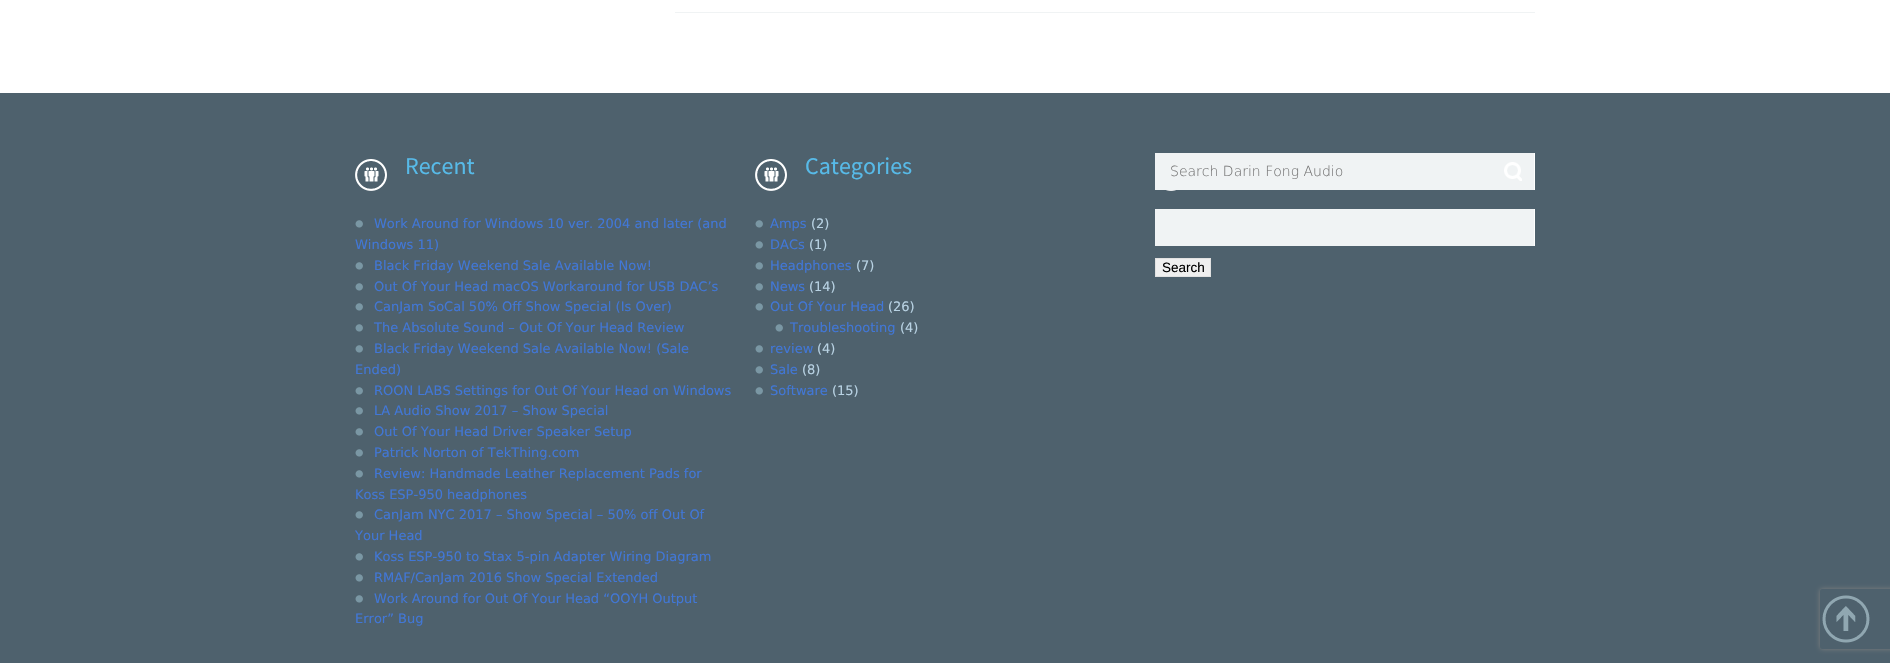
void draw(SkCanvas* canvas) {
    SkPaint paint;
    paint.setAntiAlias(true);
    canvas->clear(0xFFFFFFFF);
    paint.setColor(0xFFF0F3F4);
    canvas->drawRect(SkRect::MakeXYWH(675, 12, 860, 1), paint);
    paint.setColor(0xFF4E616D);
    canvas->drawRect(SkRect::MakeXYWH(0, 93, 1890, 570), paint);
    canvas->drawImageRect(SkImages::DeferredFromEncodedData(SkData::MakeFromFileName("img1.png")), SkRect::MakeXYWH(355, 159, 32, 32), SkSamplingOptions());
    SkFont font1(fontMgr->matchFamilyStyle("Source Sans Pro", SkFontStyle::Normal()), 24);
    font1.setSubpixel(true);
    paint.setColor(0xFF57BAE8);
    canvas->drawString("Recent", 405, 174, font1, paint);
    canvas->drawImageRect(SkImages::DeferredFromEncodedData(SkData::MakeFromFileName("img2.png")), SkRect::MakeXYWH(355, 220, 8, 8), SkSamplingOptions());
    SkFont font2(fontMgr->matchFamilyStyle("DejaVu Sans", SkFontStyle::Normal()), 13);
    font2.setSubpixel(true);
    paint.setColor(0xFF4177D7);
    canvas->drawString("Work Around for Windows 10 ver. 2004 and later (and", 374, 228, font2, paint);
    canvas->drawString("Windows 11)", 355, 249, font2, paint);
    canvas->drawImageRect(SkImages::DeferredFromEncodedData(SkData::MakeFromFileName("img2.png")), SkRect::MakeXYWH(355, 262, 8, 8), SkSamplingOptions());
    canvas->drawString("Black Friday Weekend Sale Available Now!", 374, 270, font2, paint);
    canvas->drawImageRect(SkImages::DeferredFromEncodedData(SkData::MakeFromFileName("img2.png")), SkRect::MakeXYWH(355, 283, 8, 8), SkSamplingOptions());
    canvas->drawString("Out Of Your Head macOS Workaround for USB DAC’s", 374, 291, font2, paint);
    canvas->drawImageRect(SkImages::DeferredFromEncodedData(SkData::MakeFromFileName("img2.png")), SkRect::MakeXYWH(355, 303, 8, 8), SkSamplingOptions());
    canvas->drawString("CanJam SoCal 50% Off Show Special (Is Over)", 374, 311, font2, paint);
    canvas->drawImageRect(SkImages::DeferredFromEncodedData(SkData::MakeFromFileName("img2.png")), SkRect::MakeXYWH(355, 324, 8, 8), SkSamplingOptions());
    canvas->drawString("The Absolute Sound – Out Of Your Head Review", 374, 332, font2, paint);
    canvas->drawImageRect(SkImages::DeferredFromEncodedData(SkData::MakeFromFileName("img2.png")), SkRect::MakeXYWH(355, 345, 8, 8), SkSamplingOptions());
    canvas->drawString("Black Friday Weekend Sale Available Now! (Sale", 374, 353, font2, paint);
    canvas->drawString("Ended)", 355, 374, font2, paint);
    canvas->drawImageRect(SkImages::DeferredFromEncodedData(SkData::MakeFromFileName("img2.png")), SkRect::MakeXYWH(355, 387, 8, 8), SkSamplingOptions());
    canvas->drawString("ROON LABS Settings for Out Of Your Head on Windows", 374, 395, font2, paint);
    canvas->drawImageRect(SkImages::DeferredFromEncodedData(SkData::MakeFromFileName("img2.png")), SkRect::MakeXYWH(355, 407, 8, 8), SkSamplingOptions());
    canvas->drawString("LA Audio Show 2017 – Show Special", 374, 415, font2, paint);
    canvas->drawImageRect(SkImages::DeferredFromEncodedData(SkData::MakeFromFileName("img2.png")), SkRect::MakeXYWH(355, 428, 8, 8), SkSamplingOptions());
    canvas->drawString("Out Of Your Head Driver Speaker Setup", 374, 436, font2, paint);
    canvas->drawImageRect(SkImages::DeferredFromEncodedData(SkData::MakeFromFileName("img2.png")), SkRect::MakeXYWH(355, 449, 8, 8), SkSamplingOptions());
    canvas->drawString("Patrick Norton of TekThing.com", 374, 457, font2, paint);
    canvas->drawImageRect(SkImages::DeferredFromEncodedData(SkData::MakeFromFileName("img2.png")), SkRect::MakeXYWH(355, 470, 8, 8), SkSamplingOptions());
    canvas->drawString("Review: Handmade Leather Replacement Pads for", 374, 478, font2, paint);
    canvas->drawString("Koss ESP-950 headphones", 355, 499, font2, paint);
    canvas->drawImageRect(SkImages::DeferredFromEncodedData(SkData::MakeFromFileName("img2.png")), SkRect::MakeXYWH(355, 511, 8, 8), SkSamplingOptions());
    canvas->drawString("CanJam NYC 2017 – Show Special – 50% off Out Of", 374, 519, font2, paint);
    canvas->drawString("Your Head", 355, 540, font2, paint);
    canvas->drawImageRect(SkImages::DeferredFromEncodedData(SkData::MakeFromFileName("img2.png")), SkRect::MakeXYWH(355, 553, 8, 8), SkSamplingOptions());
    canvas->drawString("Koss ESP-950 to Stax 5-pin Adapter Wiring Diagram", 374, 561, font2, paint);
    canvas->drawImageRect(SkImages::DeferredFromEncodedData(SkData::MakeFromFileName("img2.png")), SkRect::MakeXYWH(355, 574, 8, 8), SkSamplingOptions());
    canvas->drawString("RMAF/CanJam 2016 Show Special Extended", 374, 582, font2, paint);
    canvas->drawImageRect(SkImages::DeferredFromEncodedData(SkData::MakeFromFileName("img2.png")), SkRect::MakeXYWH(355, 595, 8, 8), SkSamplingOptions());
    canvas->drawString("Work Around for Out Of Your Head “OOYH Output", 374, 603, font2, paint);
    canvas->drawString("Error” Bug", 355, 623, font2, paint);
    canvas->drawImageRect(SkImages::DeferredFromEncodedData(SkData::MakeFromFileName("img1.png")), SkRect::MakeXYWH(755, 159, 32, 32), SkSamplingOptions());
    paint.setColor(0xFF57BAE8);
    canvas->drawString("Categories", 805, 174, font1, paint);
    canvas->drawImageRect(SkImages::DeferredFromEncodedData(SkData::MakeFromFileName("img2.png")), SkRect::MakeXYWH(755, 220, 8, 8), SkSamplingOptions());
    paint.setColor(0xFF4177D7);
    canvas->drawString("Amps", 770, 228, font2, paint);
    paint.setColor(0xFFB8D2E3);
    canvas->drawString("(2)", 811, 228, font2, paint);
    canvas->drawImageRect(SkImages::DeferredFromEncodedData(SkData::MakeFromFileName("img2.png")), SkRect::MakeXYWH(755, 241, 8, 8), SkSamplingOptions());
    paint.setColor(0xFF4177D7);
    canvas->drawString("DACs", 770, 249, font2, paint);
    paint.setColor(0xFFB8D2E3);
    canvas->drawString("(1)", 809, 249, font2, paint);
    canvas->drawImageRect(SkImages::DeferredFromEncodedData(SkData::MakeFromFileName("img2.png")), SkRect::MakeXYWH(755, 262, 8, 8), SkSamplingOptions());
    paint.setColor(0xFF4177D7);
    canvas->drawString("Headphones", 770, 270, font2, paint);
    paint.setColor(0xFFB8D2E3);
    canvas->drawString("(7)", 856, 270, font2, paint);
    canvas->drawImageRect(SkImages::DeferredFromEncodedData(SkData::MakeFromFileName("img2.png")), SkRect::MakeXYWH(755, 283, 8, 8), SkSamplingOptions());
    paint.setColor(0xFF4177D7);
    canvas->drawString("News", 770, 291, font2, paint);
    paint.setColor(0xFFB8D2E3);
    canvas->drawString("(14)", 809, 291, font2, paint);
    canvas->drawImageRect(SkImages::DeferredFromEncodedData(SkData::MakeFromFileName("img2.png")), SkRect::MakeXYWH(755, 303, 8, 8), SkSamplingOptions());
    paint.setColor(0xFF4177D7);
    canvas->drawString("Out Of Your Head", 770, 311, font2, paint);
    paint.setColor(0xFFB8D2E3);
    canvas->drawString("(26)", 888, 311, font2, paint);
    canvas->drawImageRect(SkImages::DeferredFromEncodedData(SkData::MakeFromFileName("img2.png")), SkRect::MakeXYWH(775, 324, 8, 8), SkSamplingOptions());
    paint.setColor(0xFF4177D7);
    canvas->drawString("Troubleshooting", 790, 332, font2, paint);
    paint.setColor(0xFFB8D2E3);
    canvas->drawString("(4)", 900, 332, font2, paint);
    canvas->drawImageRect(SkImages::DeferredFromEncodedData(SkData::MakeFromFileName("img2.png")), SkRect::MakeXYWH(755, 345, 8, 8), SkSamplingOptions());
    paint.setColor(0xFF4177D7);
    canvas->drawString("review", 770, 353, font2, paint);
    paint.setColor(0xFFB8D2E3);
    canvas->drawString("(4)", 817, 353, font2, paint);
    canvas->drawImageRect(SkImages::DeferredFromEncodedData(SkData::MakeFromFileName("img2.png")), SkRect::MakeXYWH(755, 366, 8, 8), SkSamplingOptions());
    paint.setColor(0xFF4177D7);
    canvas->drawString("Sale", 770, 374, font2, paint);
    paint.setColor(0xFFB8D2E3);
    canvas->drawString("(8)", 802, 374, font2, paint);
    canvas->drawImageRect(SkImages::DeferredFromEncodedData(SkData::MakeFromFileName("img2.png")), SkRect::MakeXYWH(755, 387, 8, 8), SkSamplingOptions());
    paint.setColor(0xFF4177D7);
    canvas->drawString("Software", 770, 395, font2, paint);
    paint.setColor(0xFFB8D2E3);
    canvas->drawString("(15)", 832, 395, font2, paint);
    canvas->drawImageRect(SkImages::DeferredFromEncodedData(SkData::MakeFromFileName("img3.png")), SkRect::MakeXYWH(1166, 190, 10, 1), SkSamplingOptions());
    paint.setColor(0xFFF0F3F4);
    canvas->drawRect(SkRect::MakeXYWH(1155, 153, 379, 37), paint);
    paint.setColor(0xFFFFFFFF);
    canvas->drawRect(SkRect::MakeXYWH(1534, 153, 1, 37), paint);
    SkFont font3(fontMgr->matchFamilyStyle("DejaVu Sans", SkFontStyle(200, SkFontStyle::kNormal_Width, SkFontStyle::kUpright_Slant)), 14);
    font3.setSubpixel(true);
    paint.setColor(0xFF757575);
    canvas->drawString("Search Darin Fong Audio", 1170, 176, font3, paint);
    canvas->drawImageRect(SkImages::DeferredFromEncodedData(SkData::MakeFromFileName("img4.png")), SkRect::MakeXYWH(1504, 162, 18, 19), SkSamplingOptions());
    paint.setColor(0xFFF0F3F4);
    canvas->drawRect(SkRect::MakeXYWH(1155, 209, 379, 37), paint);
    paint.setColor(0xFFFFFFFF);
    canvas->drawRect(SkRect::MakeXYWH(1534, 209, 1, 37), paint);
    paint.setColor(0xFFEFEFEF);
    canvas->drawRect(SkRect::MakeXYWH(1155.5f, 258.5f, 55, 18), paint);
    paint.setStyle(SkPaint::kStroke_Style);
    paint.setStrokeWidth(1);
    paint.setColor(0xFFE1E1E1);
    canvas->drawRect(SkRect::MakeXYWH(1155.5f, 258.5f, 55, 18), paint);
    SkFont font4(fontMgr->matchFamilyStyle("Liberation Sans", SkFontStyle::Normal()), 13.5f);
    font4.setSubpixel(true);
    paint.setStyle(SkPaint::kFill_Style);
    paint.setColor(0xFF000000);
    canvas->drawString("Search", 1162, 272, font4, paint);
    canvas->save();
    canvas->clipPath(SkPathBuilder(SkPathFillType::kEvenOdd).moveTo(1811, 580).lineTo(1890, 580).lineTo(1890, 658).lineTo(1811, 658).close().moveTo(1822, 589).lineTo(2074, 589).cubicTo(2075, 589, 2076, 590, 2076, 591).lineTo(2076, 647).cubicTo(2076, 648, 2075, 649, 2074, 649).lineTo(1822, 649).cubicTo(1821, 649, 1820, 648, 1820, 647).lineTo(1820, 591).cubicTo(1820, 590, 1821, 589, 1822, 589).close().detach(), true);
    paint.setColor(0xFF808080);
    paint.setMaskFilter(SkMaskFilter::MakeBlur(kNormal_SkBlurStyle, 2.5f));
    canvas->drawRoundRect(SkRect::MakeXYWH(1820, 589, 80, 60), 2, 2, paint);
    paint.setMaskFilter(nullptr);
    canvas->restore();
    canvas->drawImageRect(SkImages::DeferredFromEncodedData(SkData::MakeFromFileName("img5.png")), SkRect::MakeXYWH(1822, 595, 48, 48), SkSamplingOptions());
}
